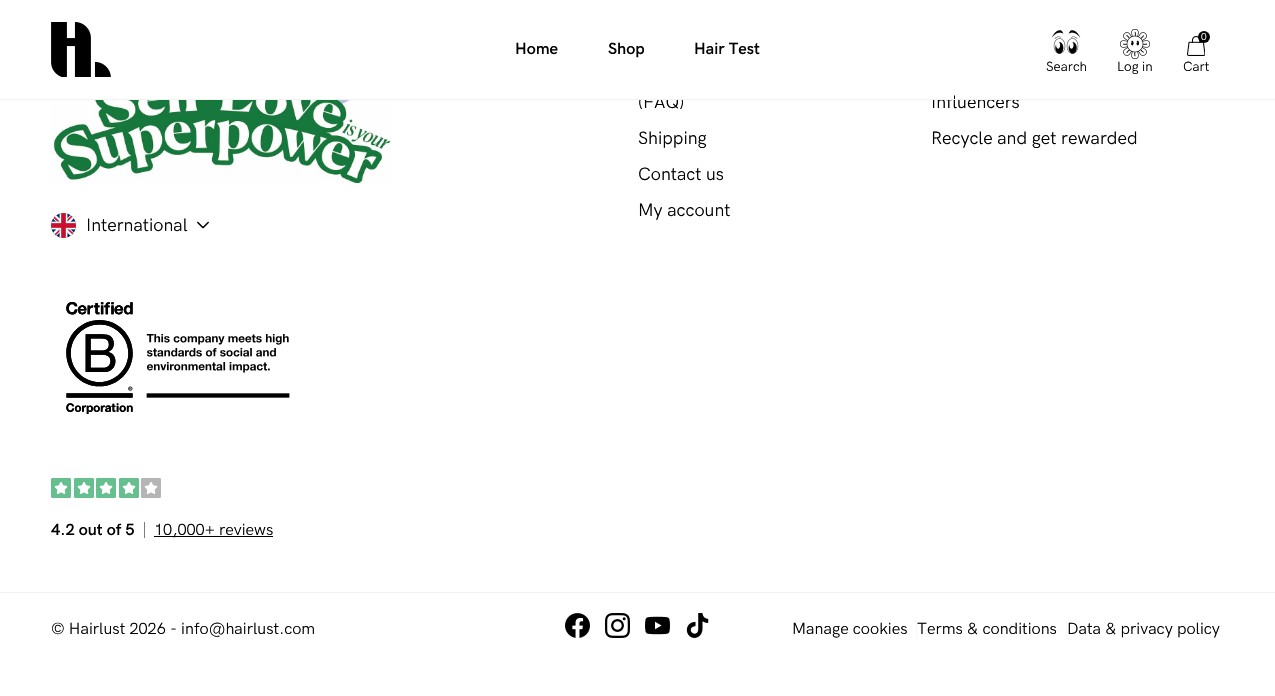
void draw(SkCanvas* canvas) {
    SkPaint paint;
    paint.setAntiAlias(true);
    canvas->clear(0xFFFFFFFF);
    SkFont font1(fontMgr->matchFamilyStyle("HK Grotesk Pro", SkFontStyle::Normal()), 18);
    font1.setSubpixel(true);
    paint.setColor(0xFF000000);
    canvas->drawString("(FAQ)", 638, 108, font1, paint);
    canvas->drawString("Influencers", 931, 108, font1, paint);
    paint.setColor(0xFFFFFFFF);
    canvas->drawRect(SkRect::MakeXYWH(639, 95, 315, 4), paint);
    paint.setColor(0xFFF2F2F2);
    canvas->drawRect(SkRect::MakeXYWH(0, 99, 1275, 1), paint);
    canvas->drawImageRect(SkImages::DeferredFromEncodedData(SkData::MakeFromFileName("img1.png")), SkRect::MakeXYWH(51, 22, 60, 55), SkSamplingOptions());
    SkFont font2(fontMgr->matchFamilyStyle("HK Grotesk Pro", SkFontStyle(600, SkFontStyle::kNormal_Width, SkFontStyle::kUpright_Slant)), 16.25f);
    font2.setSubpixel(true);
    paint.setColor(0xFF000000);
    canvas->drawString("Home", 515, 54, font2, paint);
    canvas->drawString("Shop", 608, 54, font2, paint);
    canvas->drawString("Hair Test", 694, 54, font2, paint);
    canvas->drawImageRect(SkImages::DeferredFromEncodedData(SkData::MakeFromFileName("img2.png")), SkRect::MakeXYWH(1051, 30, 30, 24), SkSamplingOptions());
    SkFont font3(fontMgr->matchFamilyStyle("HK Grotesk Pro", SkFontStyle::Normal()), 13.5f);
    font3.setSubpixel(true);
    canvas->drawString("Search", 1046, 71, font3, paint);
    canvas->drawImageRect(SkImages::DeferredFromEncodedData(SkData::MakeFromFileName("img3.png")), SkRect::MakeXYWH(1120, 29, 30, 30), SkSamplingOptions());
    canvas->drawString("Log in", 1117, 71, font3, paint);
    canvas->drawImageRect(SkImages::DeferredFromEncodedData(SkData::MakeFromFileName("img4.png")), SkRect::MakeXYWH(1187, 36, 18, 20), SkSamplingOptions());
    canvas->drawCircle(1204, 37, 6, paint);
    SkFont font4(fontMgr->matchFamilyStyle("HK Grotesk Pro", SkFontStyle::Normal()), 10);
    font4.setSubpixel(true);
    paint.setColor(0xFFFFFFFF);
    canvas->drawString("0", 1201, 40, font4, paint);
    paint.setColor(0xFF000000);
    canvas->drawString("Cart", 1183, 71, font3, paint);
    paint.setColor(0xFFF2F2F2);
    canvas->drawRect(SkRect::MakeXYWH(0, 592, 1275, 1), paint);
    paint.setColor(0xFF000000);
    canvas->drawString("Shipping", 638, 144, font1, paint);
    canvas->drawString("Contact us", 638, 180, font1, paint);
    canvas->drawString("My account", 638, 216, font1, paint);
    canvas->drawString("Recycle and get rewarded", 931, 144, font1, paint);
    canvas->drawImageRect(SkImages::DeferredFromEncodedData(SkData::MakeFromFileName("img5.png")), SkRect::MakeXYWH(51, 100, 340, 83), SkSamplingOptions());
    canvas->drawImageRect(SkImages::DeferredFromEncodedData(SkData::MakeFromFileName("img6.png")), SkRect::MakeXYWH(51, 213, 25, 25), SkSamplingOptions());
    canvas->drawString("International", 86, 231, font1, paint);
    canvas->drawImageRect(SkImages::DeferredFromEncodedData(SkData::MakeFromFileName("img7.png")), SkRect::MakeXYWH(197, 221, 12, 8), SkSamplingOptions());
    canvas->drawImageRect(SkImages::DeferredFromEncodedData(SkData::MakeFromFileName("img8.png")), SkRect::MakeXYWH(66, 302, 224, 112), SkSamplingOptions());
    canvas->drawImageRect(SkImages::DeferredFromEncodedData(SkData::MakeFromFileName("img9.png")), SkRect::MakeXYWH(51, 478, 20, 20), SkSamplingOptions());
    canvas->drawImageRect(SkImages::DeferredFromEncodedData(SkData::MakeFromFileName("img9.png")), SkRect::MakeXYWH(74, 478, 20, 20), SkSamplingOptions());
    canvas->drawImageRect(SkImages::DeferredFromEncodedData(SkData::MakeFromFileName("img9.png")), SkRect::MakeXYWH(96, 478, 20, 20), SkSamplingOptions());
    canvas->drawImageRect(SkImages::DeferredFromEncodedData(SkData::MakeFromFileName("img9.png")), SkRect::MakeXYWH(119, 478, 20, 20), SkSamplingOptions());
    canvas->drawImageRect(SkImages::DeferredFromEncodedData(SkData::MakeFromFileName("img10.png")), SkRect::MakeXYWH(141, 478, 20, 20), SkSamplingOptions());
    canvas->drawString("4.2 out of 5", 51, 535, font2, paint);
    paint.setColor(0xFF7C7C7C);
    canvas->drawRect(SkRect::MakeXYWH(144, 522, 1, 16), paint);
    paint.setColor(0xFF000000);
    canvas->drawRect(SkRect::MakeXYWH(154, 536, 119, 1), paint);
    SkFont font5(fontMgr->matchFamilyStyle("HK Grotesk Pro", SkFontStyle::Normal()), 16.25f);
    font5.setSubpixel(true);
    canvas->drawString("10,000+ reviews", 154, 535, font5, paint);
    canvas->drawString("© Hairlust 2026 - info@hairlust.com", 51, 634, font5, paint);
    canvas->drawImageRect(SkImages::DeferredFromEncodedData(SkData::MakeFromFileName("img11.png")), SkRect::MakeXYWH(565, 613, 25, 25), SkSamplingOptions());
    canvas->drawImageRect(SkImages::DeferredFromEncodedData(SkData::MakeFromFileName("img12.png")), SkRect::MakeXYWH(605, 613, 25, 25), SkSamplingOptions());
    canvas->drawImageRect(SkImages::DeferredFromEncodedData(SkData::MakeFromFileName("img13.png")), SkRect::MakeXYWH(645, 616, 25, 19), SkSamplingOptions());
    canvas->drawImageRect(SkImages::DeferredFromEncodedData(SkData::MakeFromFileName("img14.png")), SkRect::MakeXYWH(686, 613, 23, 25), SkSamplingOptions());
    canvas->drawString("Manage cookies", 792, 634, font5, paint);
    paint.setColor(0xFFF7F7F7);
    canvas->drawRect(SkRect::MakeXYWH(916, 621, 1, 17), paint);
    paint.setColor(0xFF000000);
    canvas->drawString("Terms & conditions", 917, 634, font5, paint);
    paint.setColor(0xFFF7F7F7);
    canvas->drawRect(SkRect::MakeXYWH(1066, 621, 1, 17), paint);
    paint.setColor(0xFF000000);
    canvas->drawString("Data & privacy policy", 1067, 634, font5, paint);
}
